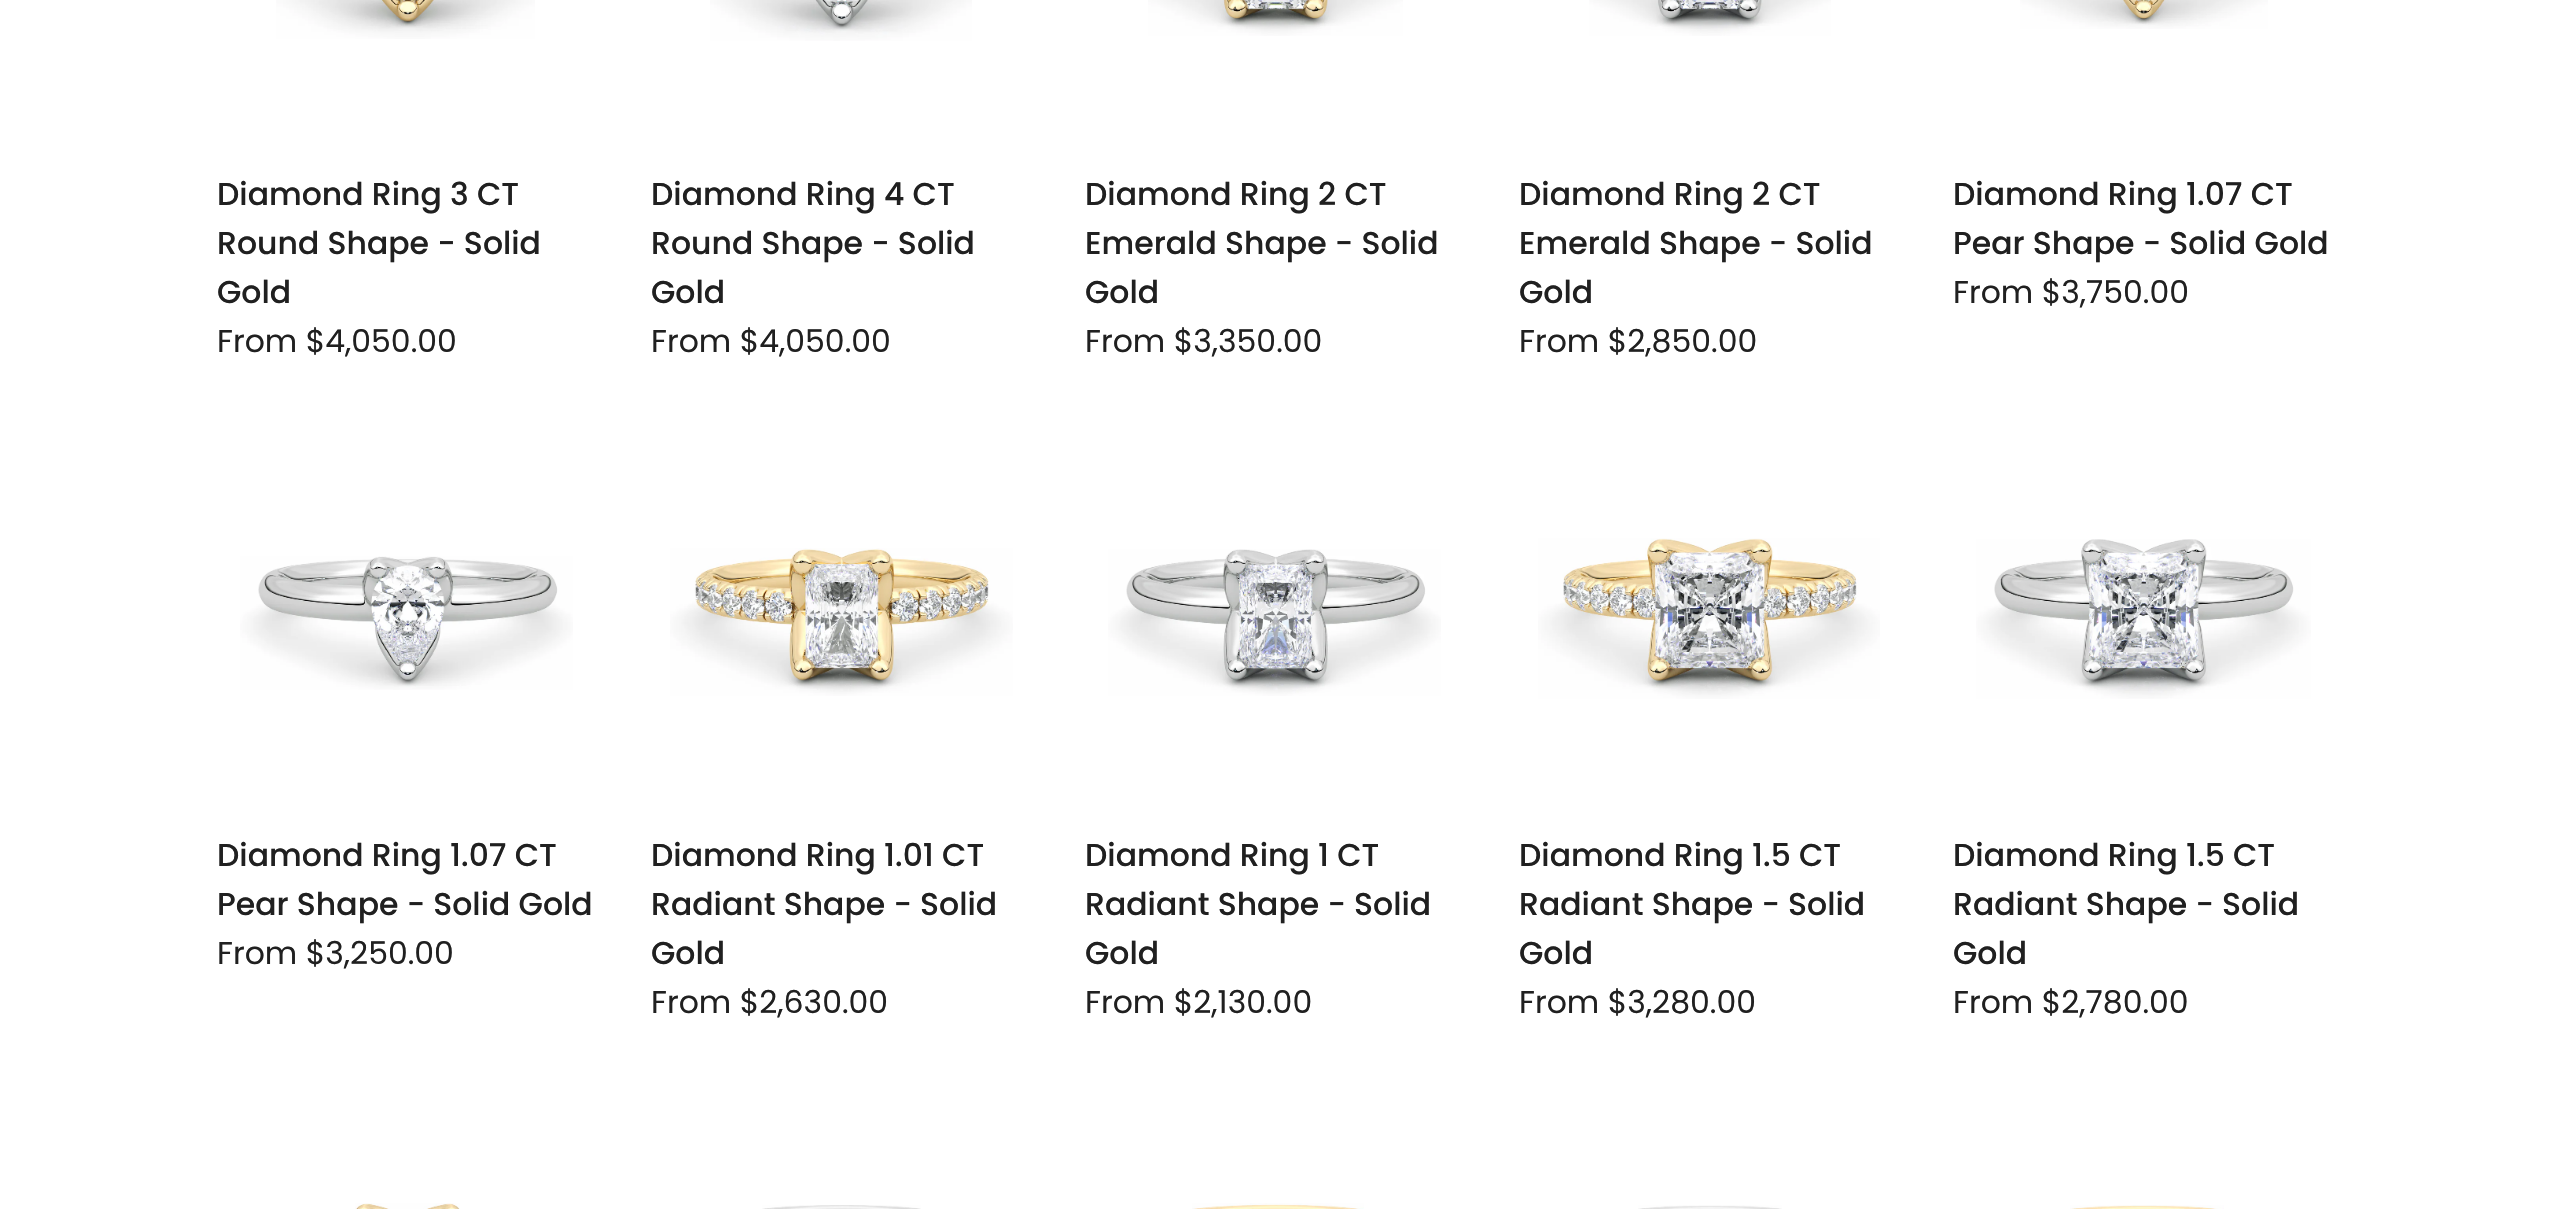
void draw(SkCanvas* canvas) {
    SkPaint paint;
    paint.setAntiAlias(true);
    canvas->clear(0xFFFFFFFF);
    canvas->drawImageRect(SkImages::DeferredFromEncodedData(SkData::MakeFromFileName("img1.png")), SkRect::MakeXYWH(276, 0, 259, 39), SkSamplingOptions());
    SkFont font1(fontMgr->matchFamilyStyle("Poppins", SkFontStyle(500, SkFontStyle::kNormal_Width, SkFontStyle::kUpright_Slant)), 31.5f);
    font1.setSubpixel(true);
    paint.setColor(0xFF202020);
    canvas->drawString("Diamond Ring 3 CT", 217, 205, font1, paint);
    canvas->drawString("Round Shape - Solid", 217, 254, font1, paint);
    canvas->drawString("Gold", 217, 303, font1, paint);
    SkFont font2(fontMgr->matchFamilyStyle("Poppins", SkFontStyle::Normal()), 31.5f);
    font2.setSubpixel(true);
    canvas->drawString("From $4,050.00", 217, 352, font2, paint);
    canvas->drawImageRect(SkImages::DeferredFromEncodedData(SkData::MakeFromFileName("img2.png")), SkRect::MakeXYWH(710, 0, 262, 41), SkSamplingOptions());
    canvas->drawString("Diamond Ring 4 CT", 651, 205, font1, paint);
    canvas->drawString("Round Shape - Solid", 651, 254, font1, paint);
    canvas->drawString("Gold", 651, 303, font1, paint);
    canvas->drawString("From $4,050.00", 651, 352, font2, paint);
    canvas->drawImageRect(SkImages::DeferredFromEncodedData(SkData::MakeFromFileName("img3.png")), SkRect::MakeXYWH(1148, 0, 255, 36), SkSamplingOptions());
    canvas->drawString("Diamond Ring 2 CT", 1085, 205, font1, paint);
    canvas->drawString("Emerald Shape - Solid", 1085, 254, font1, paint);
    canvas->drawString("Gold", 1085, 303, font1, paint);
    canvas->drawString("From $3,350.00", 1085, 352, font2, paint);
    canvas->drawImageRect(SkImages::DeferredFromEncodedData(SkData::MakeFromFileName("img4.png")), SkRect::MakeXYWH(1589, 0, 242, 36), SkSamplingOptions());
    canvas->drawString("Diamond Ring 2 CT", 1519, 205, font1, paint);
    canvas->drawString("Emerald Shape - Solid", 1519, 254, font1, paint);
    canvas->drawString("Gold", 1519, 303, font1, paint);
    canvas->drawString("From $2,850.00", 1519, 352, font2, paint);
    canvas->drawImageRect(SkImages::DeferredFromEncodedData(SkData::MakeFromFileName("img5.png")), SkRect::MakeXYWH(2020, 0, 248, 29), SkSamplingOptions());
    canvas->drawString("Diamond Ring 1.07 CT", 1953, 205, font1, paint);
    canvas->drawString("Pear Shape - Solid Gold", 1953, 254, font1, paint);
    canvas->drawString("From $3,750.00", 1953, 303, font2, paint);
    canvas->drawImageRect(SkImages::DeferredFromEncodedData(SkData::MakeFromFileName("img6.png")), SkRect::MakeXYWH(240, 556, 333, 134), SkSamplingOptions());
    canvas->drawString("Diamond Ring 1.07 CT", 217, 866, font1, paint);
    canvas->drawString("Pear Shape - Solid Gold", 217, 915, font1, paint);
    canvas->drawString("From $3,250.00", 217, 964, font2, paint);
    canvas->drawImageRect(SkImages::DeferredFromEncodedData(SkData::MakeFromFileName("img7.png")), SkRect::MakeXYWH(670, 548, 343, 148), SkSamplingOptions());
    canvas->drawString("Diamond Ring 1.01 CT", 651, 866, font1, paint);
    canvas->drawString("Radiant Shape - Solid", 651, 915, font1, paint);
    canvas->drawString("Gold", 651, 964, font1, paint);
    canvas->drawString("From $2,630.00", 651, 1013, font2, paint);
    canvas->drawImageRect(SkImages::DeferredFromEncodedData(SkData::MakeFromFileName("img8.png")), SkRect::MakeXYWH(1108, 549, 333, 147), SkSamplingOptions());
    canvas->drawString("Diamond Ring 1 CT", 1085, 866, font1, paint);
    canvas->drawString("Radiant Shape - Solid", 1085, 915, font1, paint);
    canvas->drawString("Gold", 1085, 964, font1, paint);
    canvas->drawString("From $2,130.00", 1085, 1013, font2, paint);
    canvas->drawImageRect(SkImages::DeferredFromEncodedData(SkData::MakeFromFileName("img9.png")), SkRect::MakeXYWH(1538, 538, 342, 161), SkSamplingOptions());
    canvas->drawString("Diamond Ring 1.5 CT", 1519, 866, font1, paint);
    canvas->drawString("Radiant Shape - Solid", 1519, 915, font1, paint);
    canvas->drawString("Gold", 1519, 964, font1, paint);
    canvas->drawString("From $3,280.00", 1519, 1013, font2, paint);
    canvas->drawImageRect(SkImages::DeferredFromEncodedData(SkData::MakeFromFileName("img10.png")), SkRect::MakeXYWH(1976, 539, 335, 160), SkSamplingOptions());
    canvas->drawString("Diamond Ring 1.5 CT", 1953, 866, font1, paint);
    canvas->drawString("Radiant Shape - Solid", 1953, 915, font1, paint);
    canvas->drawString("Gold", 1953, 964, font1, paint);
    canvas->drawString("From $2,780.00", 1953, 1013, font2, paint);
    canvas->drawImageRect(SkImages::DeferredFromEncodedData(SkData::MakeFromFileName("img11.png")), SkRect::MakeXYWH(355, 1203, 105, 6), SkSamplingOptions());
    canvas->drawImageRect(SkImages::DeferredFromEncodedData(SkData::MakeFromFileName("img12.png")), SkRect::MakeXYWH(762, 1205, 159, 4), SkSamplingOptions());
    canvas->drawImageRect(SkImages::DeferredFromEncodedData(SkData::MakeFromFileName("img13.png")), SkRect::MakeXYWH(1192, 1203, 172, 6), SkSamplingOptions());
    canvas->drawImageRect(SkImages::DeferredFromEncodedData(SkData::MakeFromFileName("img14.png")), SkRect::MakeXYWH(1638, 1205, 144, 4), SkSamplingOptions());
    canvas->drawImageRect(SkImages::DeferredFromEncodedData(SkData::MakeFromFileName("img15.png")), SkRect::MakeXYWH(2070, 1205, 154, 4), SkSamplingOptions());
}
